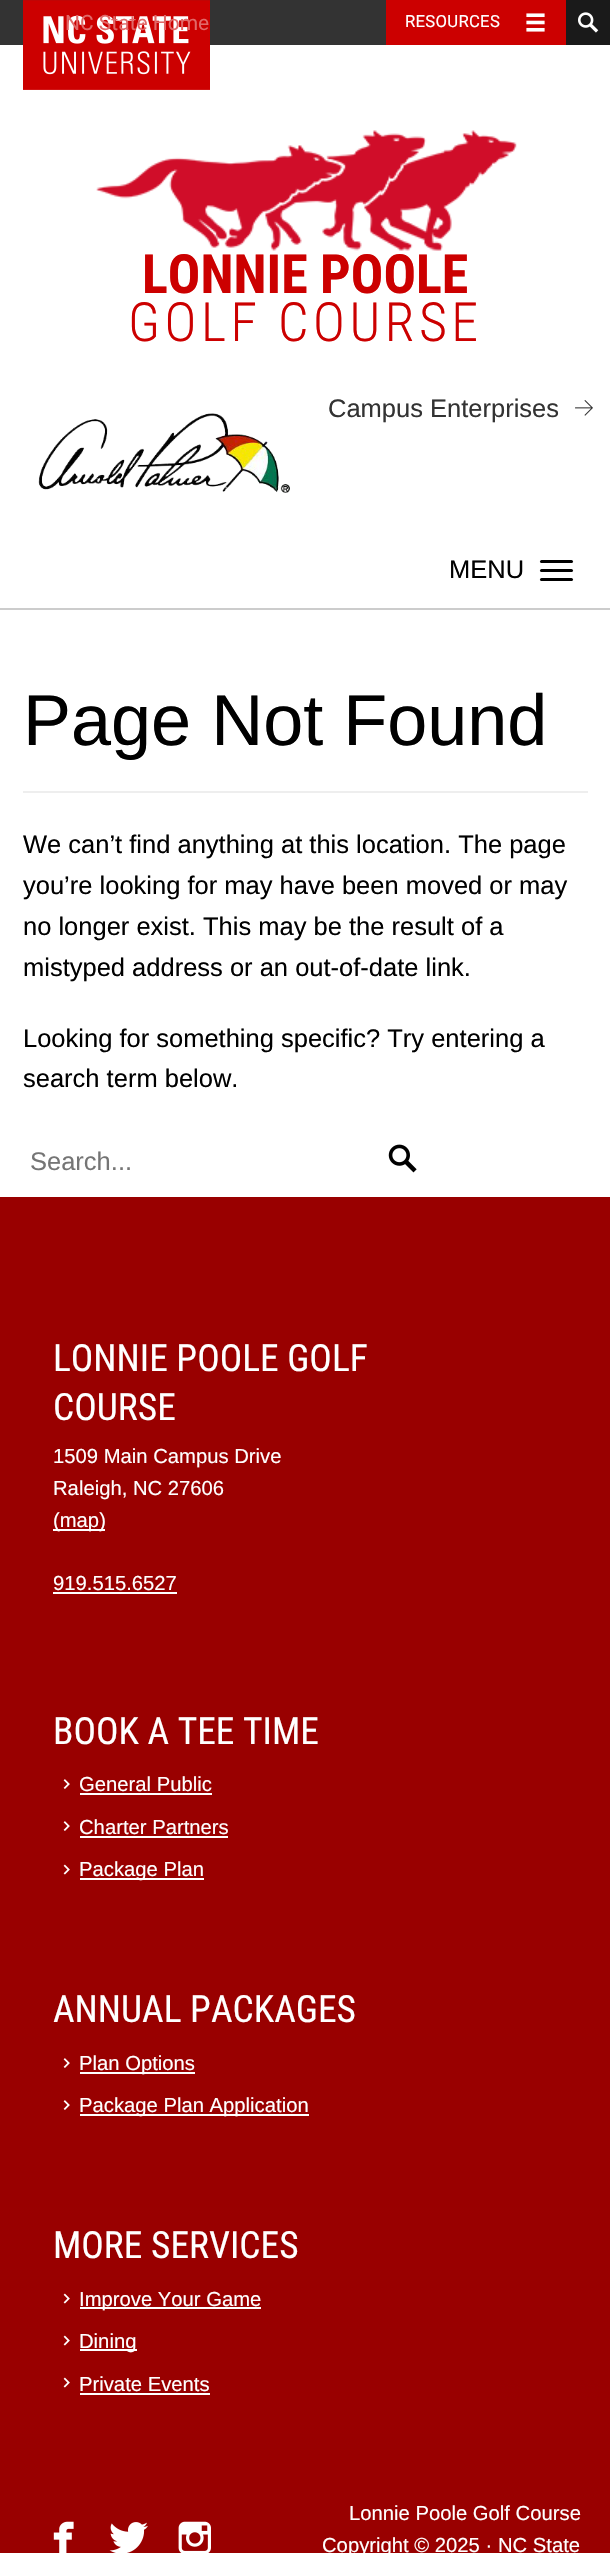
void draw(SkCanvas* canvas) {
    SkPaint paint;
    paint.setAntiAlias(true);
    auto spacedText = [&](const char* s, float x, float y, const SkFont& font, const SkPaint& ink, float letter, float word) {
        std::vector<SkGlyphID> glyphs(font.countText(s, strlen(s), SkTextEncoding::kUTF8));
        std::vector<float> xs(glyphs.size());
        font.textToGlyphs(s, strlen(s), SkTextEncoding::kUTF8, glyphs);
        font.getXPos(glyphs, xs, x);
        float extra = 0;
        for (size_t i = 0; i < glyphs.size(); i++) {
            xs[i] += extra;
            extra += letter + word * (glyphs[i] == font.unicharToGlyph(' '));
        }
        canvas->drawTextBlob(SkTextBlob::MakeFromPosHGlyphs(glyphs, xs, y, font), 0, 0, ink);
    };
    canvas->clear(0xFFFFFFFF);
    paint.setColor(0xFF333333);
    canvas->drawRect(SkRect::MakeXYWH(0, 0, 386, 45), paint);
    canvas->drawImageRect(SkImages::DeferredFromEncodedData(SkData::MakeFromFileName("img1.png")), SkRect::MakeXYWH(23, 0, 187, 90), SkSamplingOptions());
    SkFont font1(fontMgr->matchFamilyStyle("Roboto", SkFontStyle::Normal()), 21);
    font1.setSubpixel(true);
    paint.setColor(0xFFE16969);
    canvas->drawString("NC State Home", 65, 30, font1, paint);
    paint.setColor(0xFFCC0000);
    canvas->drawRect(SkRect::MakeXYWH(386, 0, 180, 45), paint);
    canvas->drawImageRect(SkImages::DeferredFromEncodedData(SkData::MakeFromFileName("img2.png")), SkRect::MakeXYWH(526, 13, 19, 19), SkSamplingOptions());
    SkFont font2(fontMgr->matchFamilyStyle("Roboto", SkFontStyle::Normal()), 16.75f);
    font2.setSubpixel(true);
    paint.setColor(0xFFFFFFFF);
    spacedText("RESOURCES", 405, 27, font2, paint, 0.25f, 0);
    paint.setColor(0xFF1A1A1A);
    canvas->drawRect(SkRect::MakeXYWH(566, 0, 44, 45), paint);
    canvas->drawImageRect(SkImages::DeferredFromEncodedData(SkData::MakeFromFileName("img3.png")), SkRect::MakeXYWH(578, 12, 21, 21), SkSamplingOptions());
    canvas->drawImageRect(SkImages::DeferredFromEncodedData(SkData::MakeFromFileName("img4.png")), SkRect::MakeXYWH(96, 130, 421, 121), SkSamplingOptions());
    SkFont font3(fontMgr->matchFamilyStyle("Roboto Condensed", SkFontStyle::Bold()), 54);
    font3.setSubpixel(true);
    paint.setColor(0xFFCC0000);
    canvas->drawString("LONNIE POOLE", 142, 293, font3, paint);
    SkFont font4(fontMgr->matchFamilyStyle("Roboto Condensed", SkFontStyle(300, SkFontStyle::kNormal_Width, SkFontStyle::kUpright_Slant)), 54);
    font4.setSubpixel(true);
    spacedText("GOLF COURSE", 128, 341, font4, paint, 4.5f, 0);
    SkFont font5(fontMgr->matchFamilyStyle("Liberation Sans", SkFontStyle::Normal()), 25.5f);
    font5.setSubpixel(true);
    paint.setColor(0xFF333333);
    canvas->drawString("Campus Enterprises", 328, 417, font5, paint);
    canvas->drawImageRect(SkImages::DeferredFromEncodedData(SkData::MakeFromFileName("img5.png")), SkRect::MakeXYWH(575, 400, 18, 16), SkSamplingOptions());
    canvas->drawImageRect(SkImages::DeferredFromEncodedData(SkData::MakeFromFileName("img6.png")), SkRect::MakeXYWH(38, 413, 252, 80), SkSamplingOptions());
    paint.setColor(0xFFCCCCCC);
    canvas->drawRect(SkRect::MakeXYWH(0, 608, 610, 2), paint);
    paint.setColor(0xFF000000);
    canvas->drawString("MENU", 449, 578, font5, paint);
    canvas->drawRoundRect(SkRect::MakeXYWH(540, 560, 33, 3), 1.5f, 1.5f, paint);
    canvas->drawRoundRect(SkRect::MakeXYWH(540, 569, 33, 3), 1.5f, 1.5f, paint);
    canvas->drawRoundRect(SkRect::MakeXYWH(540, 578, 33, 3), 1.5f, 1.5f, paint);
    paint.setColor(0xFFEEEEEE);
    canvas->drawRect(SkRect::MakeXYWH(23, 791, 565, 2), paint);
    SkFont font6(fontMgr->matchFamilyStyle("Liberation Sans", SkFontStyle::Normal()), 72);
    font6.setSubpixel(true);
    paint.setColor(0xFF000000);
    canvas->drawString("Page Not Found", 23, 745, font6, paint);
    canvas->drawString("We can’t find anything at this location. The page", 23, 853, font5, paint);
    canvas->drawString("you’re looking for may have been moved or may", 23, 894, font5, paint);
    canvas->drawString("no longer exist. This may be the result of a", 23, 935, font5, paint);
    canvas->drawString("mistyped address or an out-of-date link.", 23, 976, font5, paint);
    canvas->drawString("Looking for something specific? Try entering a", 23, 1047, font5, paint);
    canvas->drawString("search term below.", 23, 1087, font5, paint);
    paint.setColor(0xFF757575);
    canvas->drawString("Search...", 30, 1170, font5, paint);
    canvas->drawImageRect(SkImages::DeferredFromEncodedData(SkData::MakeFromFileName("img7.png")), SkRect::MakeXYWH(388, 1144, 29, 29), SkSamplingOptions());
    paint.setColor(0xFF990000);
    canvas->drawRect(SkRect::MakeXYWH(0, 1197, 610, 1356), paint);
    SkFont font7(fontMgr->matchFamilyStyle("Roboto Condensed", SkFontStyle::Normal()), 37.5f);
    font7.setSubpixel(true);
    paint.setColor(0xFFFFFFFF);
    canvas->drawString("LONNIE POOLE GOLF", 53, 1371, font7, paint);
    canvas->drawString("COURSE", 53, 1420, font7, paint);
    SkFont font8(fontMgr->matchFamilyStyle("Liberation Sans", SkFontStyle::Normal()), 20.25f);
    font8.setSubpixel(true);
    canvas->drawString("1509 Main Campus Drive", 53, 1463, font8, paint);
    canvas->drawString("Raleigh, NC 27606", 53, 1495, font8, paint);
    canvas->drawRect(SkRect::MakeXYWH(53, 1529, 52, 2), paint);
    canvas->drawString("(map)", 53, 1527, font8, paint);
    canvas->drawString("919.515.6527", 53, 1590, font8, paint);
    canvas->drawRect(SkRect::MakeXYWH(53, 1592, 124, 2), paint);
    canvas->drawString("BOOK A TEE TIME", 53, 1744, font7, paint);
    canvas->drawImageRect(SkImages::DeferredFromEncodedData(SkData::MakeFromFileName("img8.png")), SkRect::MakeXYWH(63, 1779, 7, 10), SkSamplingOptions());
    canvas->drawString("General Public", 79, 1791, font8, paint);
    canvas->drawRect(SkRect::MakeXYWH(80, 1793, 132, 2), paint);
    canvas->drawImageRect(SkImages::DeferredFromEncodedData(SkData::MakeFromFileName("img8.png")), SkRect::MakeXYWH(63, 1821, 7, 10), SkSamplingOptions());
    canvas->drawString("Charter Partners", 79, 1834, font8, paint);
    canvas->drawRect(SkRect::MakeXYWH(80, 1836, 148, 2), paint);
    canvas->drawImageRect(SkImages::DeferredFromEncodedData(SkData::MakeFromFileName("img9.png")), SkRect::MakeXYWH(63, 1864, 7, 11), SkSamplingOptions());
    canvas->drawRect(SkRect::MakeXYWH(80, 1878, 124, 2), paint);
    canvas->drawString("Package Plan", 79, 1876, font8, paint);
    canvas->drawString("ANNUAL PACKAGES", 53, 2022, font7, paint);
    canvas->drawImageRect(SkImages::DeferredFromEncodedData(SkData::MakeFromFileName("img8.png")), SkRect::MakeXYWH(63, 2058, 7, 10), SkSamplingOptions());
    canvas->drawRect(SkRect::MakeXYWH(80, 2072, 115, 2), paint);
    canvas->drawString("Plan Options", 79, 2070, font8, paint);
    canvas->drawImageRect(SkImages::DeferredFromEncodedData(SkData::MakeFromFileName("img8.png")), SkRect::MakeXYWH(63, 2100, 7, 10), SkSamplingOptions());
    canvas->drawRect(SkRect::MakeXYWH(80, 2114, 229, 2), paint);
    canvas->drawString("Package Plan Application", 79, 2112, font8, paint);
    canvas->drawString("MORE SERVICES", 53, 2258, font7, paint);
    canvas->drawImageRect(SkImages::DeferredFromEncodedData(SkData::MakeFromFileName("img9.png")), SkRect::MakeXYWH(63, 2293, 7, 11), SkSamplingOptions());
    canvas->drawRect(SkRect::MakeXYWH(80, 2307, 181, 2), paint);
    canvas->drawString("Improve Your Game", 79, 2306, font8, paint);
    canvas->drawImageRect(SkImages::DeferredFromEncodedData(SkData::MakeFromFileName("img9.png")), SkRect::MakeXYWH(63, 2335, 7, 11), SkSamplingOptions());
    canvas->drawRect(SkRect::MakeXYWH(80, 2349, 57, 2), paint);
    canvas->drawString("Dining", 79, 2348, font8, paint);
    canvas->drawImageRect(SkImages::DeferredFromEncodedData(SkData::MakeFromFileName("img9.png")), SkRect::MakeXYWH(63, 2377, 7, 11), SkSamplingOptions());
    canvas->drawString("Private Events", 79, 2391, font8, paint);
    canvas->drawRect(SkRect::MakeXYWH(80, 2393, 130, 2), paint);
    canvas->drawString("Lonnie Poole Golf Course", 349, 2520, font8, paint);
    canvas->drawImageRect(SkImages::DeferredFromEncodedData(SkData::MakeFromFileName("img10.png")), SkRect::MakeXYWH(53, 2521, 21, 32), SkSamplingOptions());
    canvas->drawImageRect(SkImages::DeferredFromEncodedData(SkData::MakeFromFileName("img11.png")), SkRect::MakeXYWH(109, 2522, 39, 31), SkSamplingOptions());
    canvas->drawImageRect(SkImages::DeferredFromEncodedData(SkData::MakeFromFileName("img12.png")), SkRect::MakeXYWH(178, 2521, 33, 32), SkSamplingOptions());
    canvas->drawString("Copyright © 2025 · NC State", 322, 2552, font8, paint);
}
